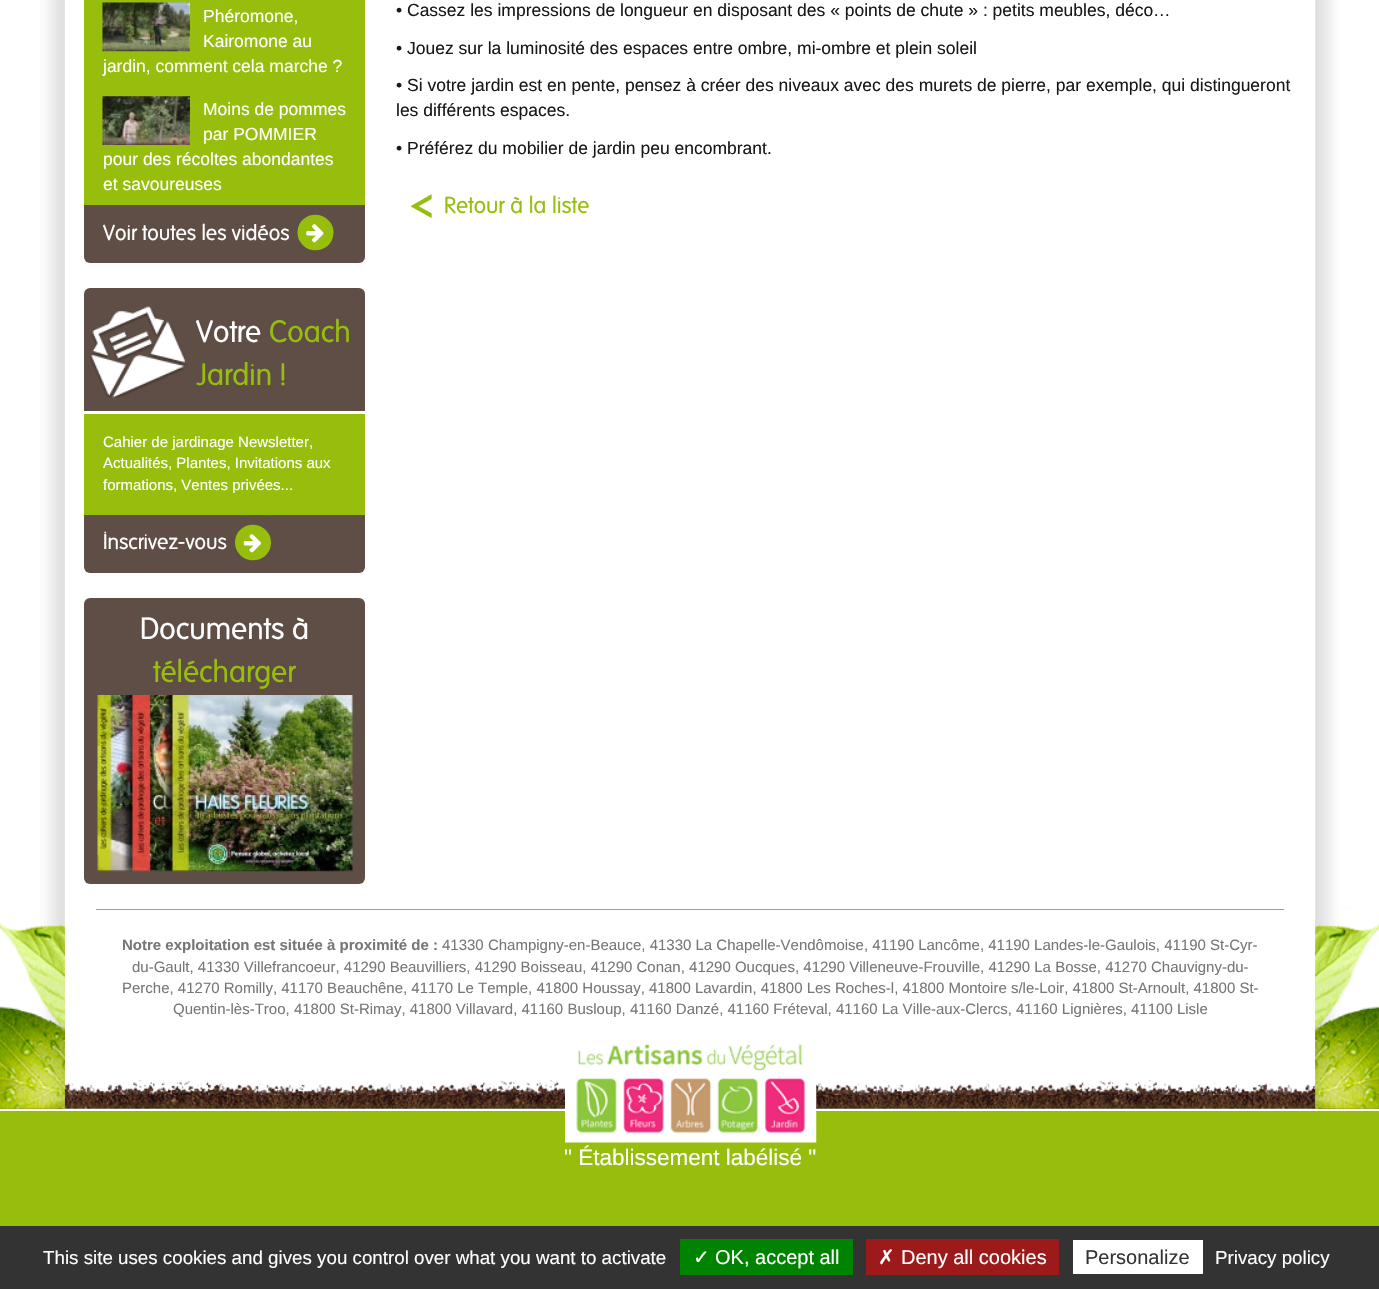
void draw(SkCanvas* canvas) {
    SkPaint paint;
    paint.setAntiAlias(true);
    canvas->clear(0xFFFFFFFF);
    canvas->drawImageRect(SkImages::DeferredFromEncodedData(SkData::MakeFromFileName("img1.png")), SkRect::MakeXYWH(0, 0, 1379, 1109), SkSamplingOptions());
    paint.setColor(0xFFFFFFFF);
    canvas->drawRect(SkRect::MakeXYWH(65, 0, 1250, 1109), paint);
    canvas->drawImageRect(SkImages::DeferredFromEncodedData(SkData::MakeFromFileName("img2.png")), SkRect::MakeXYWH(65, 1078, 1250, 31), SkSamplingOptions());
    paint.setColor(0xFF5F4E45);
    canvas->drawRoundRect(SkRect::MakeXYWH(84, -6, 281, 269), 6, 6, paint);
    paint.setColor(0xFF97BE0D);
    canvas->drawRect(SkRect::MakeXYWH(84, 0, 281, 205), paint);
    canvas->drawImageRect(SkImages::DeferredFromEncodedData(SkData::MakeFromFileName("img3.png")), SkRect::MakeXYWH(102, 2, 88, 50), SkSamplingOptions());
    SkFont font1(fontMgr->matchFamilyStyle("Liberation Sans", SkFontStyle::Normal()), 17.5f);
    font1.setSubpixel(true);
    paint.setColor(0xFFFFFFFF);
    canvas->drawString("Phéromone,", 203, 22, font1, paint);
    canvas->drawString("Kairomone au", 203, 47, font1, paint);
    canvas->drawString("jardin, comment cela marche ?", 103, 72, font1, paint);
    canvas->drawImageRect(SkImages::DeferredFromEncodedData(SkData::MakeFromFileName("img4.png")), SkRect::MakeXYWH(102, 96, 88, 49), SkSamplingOptions());
    canvas->drawString("Moins de pommes", 203, 115, font1, paint);
    canvas->drawString("par POMMIER", 203, 140, font1, paint);
    canvas->drawString("pour des récoltes abondantes", 103, 165, font1, paint);
    canvas->drawString("et savoureuses", 103, 190, font1, paint);
    SkFont font2(fontMgr->matchFamilyStyle("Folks", SkFontStyle::Normal()), 21);
    font2.setSubpixel(true);
    canvas->drawString("Voir toutes les vidéos", 103, 240, font2, paint);
    paint.setColor(0xFF97BE0D);
    canvas->drawPath(SkPathBuilder().moveTo(331, 223.5f).cubicTo(333, 226.5f, 333.5f, 230, 333.5f, 233.5f).cubicTo(332.5f, 251.5f, 309, 256.5f, 300, 241.5f).cubicTo(298, 238.5f, 297.5f, 235, 297.5f, 231.5f).cubicTo(298.5f, 213.5f, 322, 208.5f, 331, 223.5f).close().detach(), paint);
    canvas->drawImageRect(SkImages::DeferredFromEncodedData(SkData::MakeFromFileName("img5.png")), SkRect::MakeXYWH(306, 224, 18, 19), SkSamplingOptions());
    paint.setColor(0xFF5F4E45);
    canvas->drawRoundRect(SkRect::MakeXYWH(84, 288, 281, 285), 6, 6, paint);
    canvas->drawImageRect(SkImages::DeferredFromEncodedData(SkData::MakeFromFileName("img6.png")), SkRect::MakeXYWH(90, 306, 96, 92), SkSamplingOptions());
    paint.setColor(0xFFFFFFFF);
    canvas->drawRect(SkRect::MakeXYWH(84, 411, 281, 3), paint);
    SkFont font3(fontMgr->matchFamilyStyle("Folks", SkFontStyle::Normal()), 30);
    font3.setSubpixel(true);
    canvas->drawString("Votre", 196, 342, font3, paint);
    paint.setColor(0xFF97BE0D);
    canvas->drawString("Coach", 269, 342, font3, paint);
    canvas->drawString("Jardin !", 196, 385, font3, paint);
    canvas->drawRect(SkRect::MakeXYWH(84, 414, 281, 101), paint);
    SkFont font4(fontMgr->matchFamilyStyle("Liberation Sans", SkFontStyle::Normal()), 15);
    font4.setSubpixel(true);
    paint.setColor(0xFFFFFFFF);
    canvas->drawString("Cahier de jardinage Newsletter,", 103, 447, font4, paint);
    canvas->drawString("Actualités, Plantes, Invitations aux", 103, 468, font4, paint);
    canvas->drawString("formations, Ventes privées...", 103, 490, font4, paint);
    canvas->drawString("Inscrivez-vous", 103, 549, font2, paint);
    paint.setColor(0xFF97BE0D);
    canvas->drawPath(SkPathBuilder().moveTo(268.5f, 533.5f).cubicTo(270.5f, 536.5f, 271, 540, 271, 543.5f).cubicTo(270, 561.5f, 246.5f, 566.5f, 237.5f, 551.5f).cubicTo(235.5f, 548.5f, 235, 545, 235, 541.5f).cubicTo(236, 523.5f, 259.5f, 518.5f, 268.5f, 533.5f).close().detach(), paint);
    canvas->drawImageRect(SkImages::DeferredFromEncodedData(SkData::MakeFromFileName("img7.png")), SkRect::MakeXYWH(243, 534, 18, 19), SkSamplingOptions());
    paint.setColor(0xFF5F4E45);
    canvas->drawRoundRect(SkRect::MakeXYWH(84, 598, 281, 286), 6, 6, paint);
    paint.setColor(0xFFFFFFFF);
    canvas->drawString("Documents à", 140, 639, font3, paint);
    paint.setColor(0xFF97BE0D);
    canvas->drawString("télécharger", 153, 682, font3, paint);
    canvas->drawImageRect(SkImages::DeferredFromEncodedData(SkData::MakeFromFileName("img8.png")), SkRect::MakeXYWH(97, 695, 256, 177), SkSamplingOptions());
    paint.setColor(0xFF181818);
    canvas->drawString("• Cassez les impressions de longueur en disposant des « points de chute » : petits meubles, déco…", 396, 16, font1, paint);
    canvas->drawString("• Jouez sur la luminosité des espaces entre ombre, mi-ombre et plein soleil", 396, 54, font1, paint);
    canvas->drawString("• Si votre jardin est en pente, pensez à créer des niveaux avec des murets de pierre, par exemple, qui distingueront", 396, 91, font1, paint);
    canvas->drawString("les différents espaces.", 396, 116, font1, paint);
    canvas->drawString("• Préférez du mobilier de jardin peu encombrant.", 396, 154, font1, paint);
    SkFont font5(fontMgr->matchFamilyStyle("Folks", SkFontStyle::Bold()), 45);
    font5.setSubpixel(true);
    paint.setColor(0xFF97BE0D);
    canvas->drawString("<", 409, 223, font5, paint);
    SkFont font6(fontMgr->matchFamilyStyle("Folks", SkFontStyle::Normal()), 22.5f);
    font6.setSubpixel(true);
    canvas->drawString("Retour à la liste", 444, 213, font6, paint);
    canvas->drawRect(SkRect::MakeXYWH(96, 909, 1188, 1), paint);
    SkFont font7(fontMgr->matchFamilyStyle("Liberation Sans", SkFontStyle::Bold()), 15);
    font7.setSubpixel(true);
    paint.setColor(0xFF777777);
    canvas->drawString("Notre exploitation est située à proximité de :", 122, 950, font7, paint);
    canvas->drawString("41330 Champigny-en-Beauce, 41330 La Chapelle-Vendômoise, 41190 Lancôme, 41190 Landes-le-Gaulois, 41190 St-Cyr-", 442, 950, font4, paint);
    canvas->drawString("du-Gault, 41330 Villefrancoeur, 41290 Beauvilliers, 41290 Boisseau, 41290 Conan, 41290 Oucques, 41290 Villeneuve-Frouville, 41290 La Bosse, 41270 Chauvigny-du-", 132, 972, font4, paint);
    canvas->drawString("Perche, 41270 Romilly, 41170 Beauchêne, 41170 Le Temple, 41800 Houssay, 41800 Lavardin, 41800 Les Roches-l, 41800 Montoire s/le-Loir, 41800 St-Arnoult, 41800 St-", 122, 993, font4, paint);
    canvas->drawString("Quentin-lès-Troo, 41800 St-Rimay, 41800 Villavard, 41160 Busloup, 41160 Danzé, 41160 Fréteval, 41160 La Ville-aux-Clercs, 41160 Lignières, 41100 Lisle", 173, 1014, font4, paint);
    paint.setColor(0xFF97BE0D);
    canvas->drawRect(SkRect::MakeXYWH(0, 1111, 1379, 115), paint);
    canvas->drawImageRect(SkImages::DeferredFromEncodedData(SkData::MakeFromFileName("img9.png")), SkRect::MakeXYWH(565, 1043, 252, 100), SkSamplingOptions());
    SkFont font8(fontMgr->matchFamilyStyle("Liberation Sans", SkFontStyle::Normal()), 22.5f);
    font8.setSubpixel(true);
    paint.setColor(0xFFFFFFFF);
    canvas->drawString("\" Établissement labélisé \"", 564, 1165, font8, paint);
    paint.setColor(0xFF333333);
    canvas->drawRect(SkRect::MakeXYWH(0, 1226, 1379, 63), paint);
    SkFont font9(fontMgr->matchFamilyStyle("Liberation Sans", SkFontStyle::Normal()), 18.75f);
    font9.setSubpixel(true);
    paint.setColor(0xFFFFFFFF);
    canvas->drawString("This site uses cookies and gives you control over what you want to activate", 43, 1264, font9, paint);
    paint.setColor(0xFF008300);
    canvas->drawRect(SkRect::MakeXYWH(680, 1239, 173, 36), paint);
    SkFont font10(fontMgr->matchFamilyStyle("DejaVu Sans", SkFontStyle::Normal()), 20);
    font10.setSubpixel(true);
    paint.setColor(0xFFFFFFFF);
    canvas->drawString("✓", 693, 1264, font10, paint);
    SkFont font11(fontMgr->matchFamilyStyle("Liberation Sans", SkFontStyle::Normal()), 20);
    font11.setSubpixel(true);
    canvas->drawString("OK, accept all", 715, 1264, font11, paint);
    paint.setColor(0xFF9C1A1A);
    canvas->drawRect(SkRect::MakeXYWH(866, 1239, 193, 36), paint);
    paint.setColor(0xFFFFFFFF);
    canvas->drawString("✗", 878, 1264, font10, paint);
    canvas->drawString("Deny all cookies", 901, 1264, font11, paint);
    canvas->drawRect(SkRect::MakeXYWH(1073, 1240, 130, 34), paint);
    paint.setColor(0xFF333333);
    canvas->drawString("Personalize", 1085, 1264, font11, paint);
    paint.setColor(0xFFFFFFFF);
    canvas->drawString("Privacy policy", 1215, 1264, font9, paint);
}
